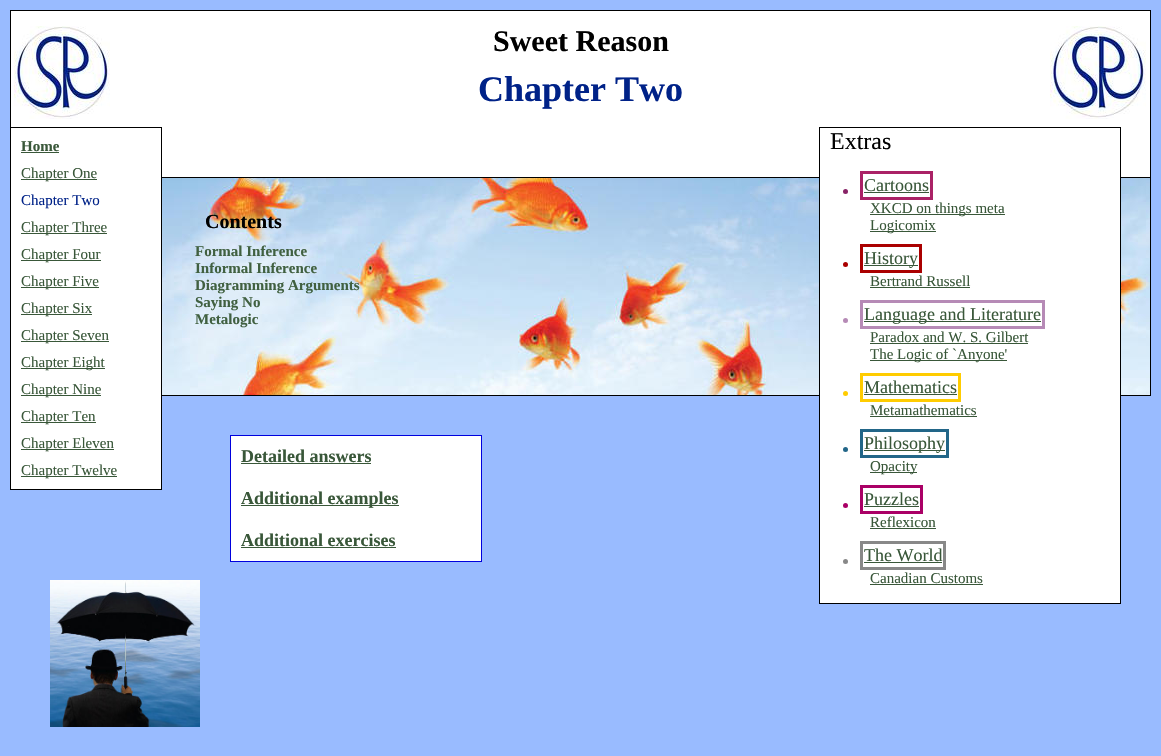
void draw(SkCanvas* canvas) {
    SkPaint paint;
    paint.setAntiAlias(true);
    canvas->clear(0xFF99BBFF);
    paint.setColor(0xFFFFFFFF);
    canvas->drawRect(SkRect::MakeXYWH(11, 11, 1139, 166), paint);
    paint.setColor(0xFF000000);
    canvas->drawRect(SkRect::MakeXYWH(10, 10, 1141, 1), paint);
    canvas->drawRect(SkRect::MakeXYWH(1150, 10, 1, 167), paint);
    canvas->drawRect(SkRect::MakeXYWH(10, 10, 1, 117), paint);
    canvas->drawImageRect(SkImages::DeferredFromEncodedData(SkData::MakeFromFileName("img1.png")), SkRect::MakeXYWH(14, 26, 96, 93), SkSamplingOptions());
    SkFont font1(fontMgr->matchFamilyStyle("Liberation Serif", SkFontStyle::Bold()), 30);
    font1.setSubpixel(true);
    canvas->drawString("Sweet Reason", 493, 51, font1, paint);
    SkFont font2(fontMgr->matchFamilyStyle("Liberation Serif", SkFontStyle::Bold()), 36);
    font2.setSubpixel(true);
    paint.setColor(0xFF002288);
    canvas->drawString("Chapter Two", 478, 101, font2, paint);
    canvas->drawImageRect(SkImages::DeferredFromEncodedData(SkData::MakeFromFileName("img1.png")), SkRect::MakeXYWH(1050, 26, 96, 93), SkSamplingOptions());
    canvas->drawImageRect(SkImages::DeferredFromEncodedData(SkData::MakeFromFileName("img2.png")), SkRect::MakeXYWH(162, 178, 988, 217), SkSamplingOptions());
    paint.setStyle(SkPaint::kStroke_Style);
    paint.setStrokeWidth(1);
    paint.setColor(0xFF000000);
    canvas->drawRect(SkRect::MakeXYWH(141.5f, 177.5f, 1009, 218), paint);
    paint.setStyle(SkPaint::kFill_Style);
    paint.setColor(0xFFFFFFFF);
    canvas->drawRect(SkRect::MakeXYWH(11, 177, 150, 312), paint);
    paint.setStyle(SkPaint::kStroke_Style);
    paint.setColor(0xFF000000);
    canvas->drawRect(SkRect::MakeXYWH(10.5f, 127.5f, 151, 362), paint);
    SkFont font3(fontMgr->matchFamilyStyle("Liberation Serif", SkFontStyle::Bold()), 15);
    font3.setSubpixel(true);
    paint.setStyle(SkPaint::kFill_Style);
    paint.setColor(0xFF395739);
    canvas->drawString("Home", 21, 151, font3, paint);
    canvas->drawRect(SkRect::MakeXYWH(21, 152, 38, 1), paint);
    canvas->drawRect(SkRect::MakeXYWH(21, 179, 76, 1), paint);
    SkFont font4(fontMgr->matchFamilyStyle("Liberation Serif", SkFontStyle::Normal()), 15);
    font4.setSubpixel(true);
    canvas->drawString("Chapter One", 21, 178, font4, paint);
    paint.setColor(0xFF002288);
    canvas->drawString("Chapter Two", 21, 205, font4, paint);
    paint.setColor(0xFF395739);
    canvas->drawRect(SkRect::MakeXYWH(21, 233, 86, 1), paint);
    canvas->drawString("Chapter Three", 21, 232, font4, paint);
    canvas->drawRect(SkRect::MakeXYWH(21, 260, 80, 1), paint);
    canvas->drawString("Chapter Four", 21, 259, font4, paint);
    canvas->drawRect(SkRect::MakeXYWH(21, 287, 78, 1), paint);
    canvas->drawString("Chapter Five", 21, 286, font4, paint);
    canvas->drawRect(SkRect::MakeXYWH(21, 314, 71, 1), paint);
    canvas->drawString("Chapter Six", 21, 313, font4, paint);
    canvas->drawRect(SkRect::MakeXYWH(21, 341, 88, 1), paint);
    canvas->drawString("Chapter Seven", 21, 340, font4, paint);
    canvas->drawRect(SkRect::MakeXYWH(21, 368, 84, 1), paint);
    canvas->drawString("Chapter Eight", 21, 367, font4, paint);
    canvas->drawRect(SkRect::MakeXYWH(21, 395, 80, 1), paint);
    canvas->drawString("Chapter Nine", 21, 394, font4, paint);
    canvas->drawRect(SkRect::MakeXYWH(21, 422, 75, 1), paint);
    canvas->drawString("Chapter Ten", 21, 421, font4, paint);
    canvas->drawRect(SkRect::MakeXYWH(21, 449, 93, 1), paint);
    canvas->drawString("Chapter Eleven", 21, 448, font4, paint);
    canvas->drawRect(SkRect::MakeXYWH(21, 476, 96, 1), paint);
    canvas->drawString("Chapter Twelve", 21, 475, font4, paint);
    SkFont font5(fontMgr->matchFamilyStyle("Liberation Serif", SkFontStyle::Bold()), 20);
    font5.setSubpixel(true);
    paint.setColor(0xFF000000);
    canvas->drawString("Contents", 205, 228, font5, paint);
    paint.setColor(0xFF406040);
    canvas->drawString("Formal Inference", 195, 256, font3, paint);
    canvas->drawString("Informal Inference", 195, 273, font3, paint);
    canvas->drawString("Diagramming Arguments", 195, 290, font3, paint);
    canvas->drawString("Saying No", 195, 307, font3, paint);
    canvas->drawString("Metalogic", 195, 324, font3, paint);
    paint.setColor(0xFFFFFFFF);
    canvas->drawRect(SkRect::MakeXYWH(820, 177, 300, 426), paint);
    paint.setStyle(SkPaint::kStroke_Style);
    paint.setColor(0xFF000000);
    canvas->drawRect(SkRect::MakeXYWH(819.5f, 127.5f, 301, 476), paint);
    SkFont font6(fontMgr->matchFamilyStyle("Liberation Serif", SkFontStyle::Normal()), 24);
    font6.setSubpixel(true);
    paint.setStyle(SkPaint::kFill_Style);
    canvas->drawString("Extras", 830, 149, font6, paint);
    paint.setColor(0xFF882266);
    canvas->drawCircle(845.5f, 191.5f, 2.5f, paint);
    paint.setColor(0xFFAA2266);
    canvas->drawRect(SkRect::MakeXYWH(860, 171, 73, 3), paint);
    canvas->drawRect(SkRect::MakeXYWH(930, 171, 3, 29), paint);
    canvas->drawRect(SkRect::MakeXYWH(860, 197, 73, 3), paint);
    canvas->drawRect(SkRect::MakeXYWH(860, 171, 3, 29), paint);
    SkFont font7(fontMgr->matchFamilyStyle("Liberation Serif", SkFontStyle::Normal()), 18);
    font7.setSubpixel(true);
    paint.setColor(0xFF395739);
    canvas->drawString("Cartoons", 864, 191, font7, paint);
    canvas->drawRect(SkRect::MakeXYWH(864, 192, 65, 1), paint);
    canvas->drawRect(SkRect::MakeXYWH(870, 214, 135, 1), paint);
    canvas->drawString("XKCD on things meta", 870, 213, font4, paint);
    canvas->drawRect(SkRect::MakeXYWH(870, 231, 66, 1), paint);
    canvas->drawString("Logicomix", 870, 230, font4, paint);
    paint.setColor(0xFFAA0000);
    canvas->drawCircle(845.5f, 264.5f, 2.5f, paint);
    canvas->drawRect(SkRect::MakeXYWH(860, 244, 62, 3), paint);
    canvas->drawRect(SkRect::MakeXYWH(919, 244, 3, 29), paint);
    canvas->drawRect(SkRect::MakeXYWH(860, 270, 62, 3), paint);
    canvas->drawRect(SkRect::MakeXYWH(860, 244, 3, 29), paint);
    paint.setColor(0xFF395739);
    canvas->drawRect(SkRect::MakeXYWH(864, 265, 54, 1), paint);
    canvas->drawString("History", 864, 264, font7, paint);
    canvas->drawString("Bertrand Russell", 870, 286, font4, paint);
    canvas->drawRect(SkRect::MakeXYWH(870, 287, 100, 1), paint);
    paint.setColor(0xFFB68AB6);
    canvas->drawCircle(845.5f, 320.5f, 2.5f, paint);
    canvas->drawRect(SkRect::MakeXYWH(860, 300, 185, 3), paint);
    canvas->drawRect(SkRect::MakeXYWH(1042, 300, 3, 29), paint);
    canvas->drawRect(SkRect::MakeXYWH(860, 326, 185, 3), paint);
    canvas->drawRect(SkRect::MakeXYWH(860, 300, 3, 29), paint);
    paint.setColor(0xFF395739);
    canvas->drawRect(SkRect::MakeXYWH(864, 321, 177, 1), paint);
    canvas->drawString("Language and Literature", 864, 320, font7, paint);
    canvas->drawString("Paradox and W. S. Gilbert", 870, 342, font4, paint);
    canvas->drawRect(SkRect::MakeXYWH(870, 343, 158, 1), paint);
    canvas->drawRect(SkRect::MakeXYWH(870, 360, 137, 1), paint);
    canvas->drawString("The Logic of `Anyone'", 870, 359, font4, paint);
    paint.setColor(0xFFFFCC00);
    canvas->drawCircle(845.5f, 393.5f, 2.5f, paint);
    canvas->drawRect(SkRect::MakeXYWH(860, 373, 101, 3), paint);
    canvas->drawRect(SkRect::MakeXYWH(958, 373, 3, 29), paint);
    canvas->drawRect(SkRect::MakeXYWH(860, 399, 101, 3), paint);
    canvas->drawRect(SkRect::MakeXYWH(860, 373, 3, 29), paint);
    paint.setColor(0xFF395739);
    canvas->drawString("Mathematics", 864, 393, font7, paint);
    canvas->drawRect(SkRect::MakeXYWH(864, 394, 93, 1), paint);
    canvas->drawString("Metamathematics", 870, 415, font4, paint);
    canvas->drawRect(SkRect::MakeXYWH(870, 416, 107, 1), paint);
    paint.setColor(0xFF226688);
    canvas->drawCircle(845.5f, 449.5f, 2.5f, paint);
    canvas->drawRect(SkRect::MakeXYWH(860, 429, 89, 3), paint);
    canvas->drawRect(SkRect::MakeXYWH(946, 429, 3, 29), paint);
    canvas->drawRect(SkRect::MakeXYWH(860, 455, 89, 3), paint);
    canvas->drawRect(SkRect::MakeXYWH(860, 429, 3, 29), paint);
    paint.setColor(0xFF395739);
    canvas->drawRect(SkRect::MakeXYWH(864, 450, 81, 1), paint);
    canvas->drawString("Philosophy", 864, 449, font7, paint);
    canvas->drawRect(SkRect::MakeXYWH(870, 472, 47, 1), paint);
    canvas->drawString("Opacity", 870, 471, font4, paint);
    paint.setColor(0xFFAA0066);
    canvas->drawCircle(845.5f, 505.5f, 2.5f, paint);
    canvas->drawRect(SkRect::MakeXYWH(860, 485, 63, 3), paint);
    canvas->drawRect(SkRect::MakeXYWH(920, 485, 3, 29), paint);
    canvas->drawRect(SkRect::MakeXYWH(860, 511, 63, 3), paint);
    canvas->drawRect(SkRect::MakeXYWH(860, 485, 3, 29), paint);
    paint.setColor(0xFF395739);
    canvas->drawString("Puzzles", 864, 505, font7, paint);
    canvas->drawRect(SkRect::MakeXYWH(864, 506, 55, 1), paint);
    canvas->drawString("Reflexicon", 870, 527, font4, paint);
    canvas->drawRect(SkRect::MakeXYWH(870, 528, 66, 1), paint);
    paint.setColor(0xFF888888);
    canvas->drawCircle(845.5f, 561.5f, 2.5f, paint);
    canvas->drawRect(SkRect::MakeXYWH(860, 541, 86, 3), paint);
    canvas->drawRect(SkRect::MakeXYWH(943, 541, 3, 29), paint);
    canvas->drawRect(SkRect::MakeXYWH(860, 567, 86, 3), paint);
    canvas->drawRect(SkRect::MakeXYWH(860, 541, 3, 29), paint);
    paint.setColor(0xFF395739);
    canvas->drawString("The World", 864, 561, font7, paint);
    canvas->drawRect(SkRect::MakeXYWH(864, 562, 78, 1), paint);
    canvas->drawString("Canadian Customs", 870, 583, font4, paint);
    canvas->drawRect(SkRect::MakeXYWH(870, 584, 113, 1), paint);
    paint.setColor(0xFFFFFFFF);
    canvas->drawRect(SkRect::MakeXYWH(230.5f, 435.5f, 251, 126), paint);
    paint.setStyle(SkPaint::kStroke_Style);
    paint.setColor(0xFF0000DD);
    canvas->drawRect(SkRect::MakeXYWH(230.5f, 435.5f, 251, 126), paint);
    SkFont font8(fontMgr->matchFamilyStyle("Liberation Serif", SkFontStyle::Bold()), 18);
    font8.setSubpixel(true);
    paint.setStyle(SkPaint::kFill_Style);
    paint.setColor(0xFF395739);
    canvas->drawString("Detailed answers", 241, 462, font8, paint);
    canvas->drawRect(SkRect::MakeXYWH(241, 463, 130, 1), paint);
    canvas->drawRect(SkRect::MakeXYWH(241, 505, 158, 1), paint);
    canvas->drawString("Additional examples", 241, 504, font8, paint);
    canvas->drawString("Additional exercises", 241, 546, font8, paint);
    canvas->drawRect(SkRect::MakeXYWH(241, 547, 155, 1), paint);
    canvas->drawImageRect(SkImages::DeferredFromEncodedData(SkData::MakeFromFileName("img3.png")), SkRect::MakeXYWH(50, 580, 150, 147), SkSamplingOptions());
}
